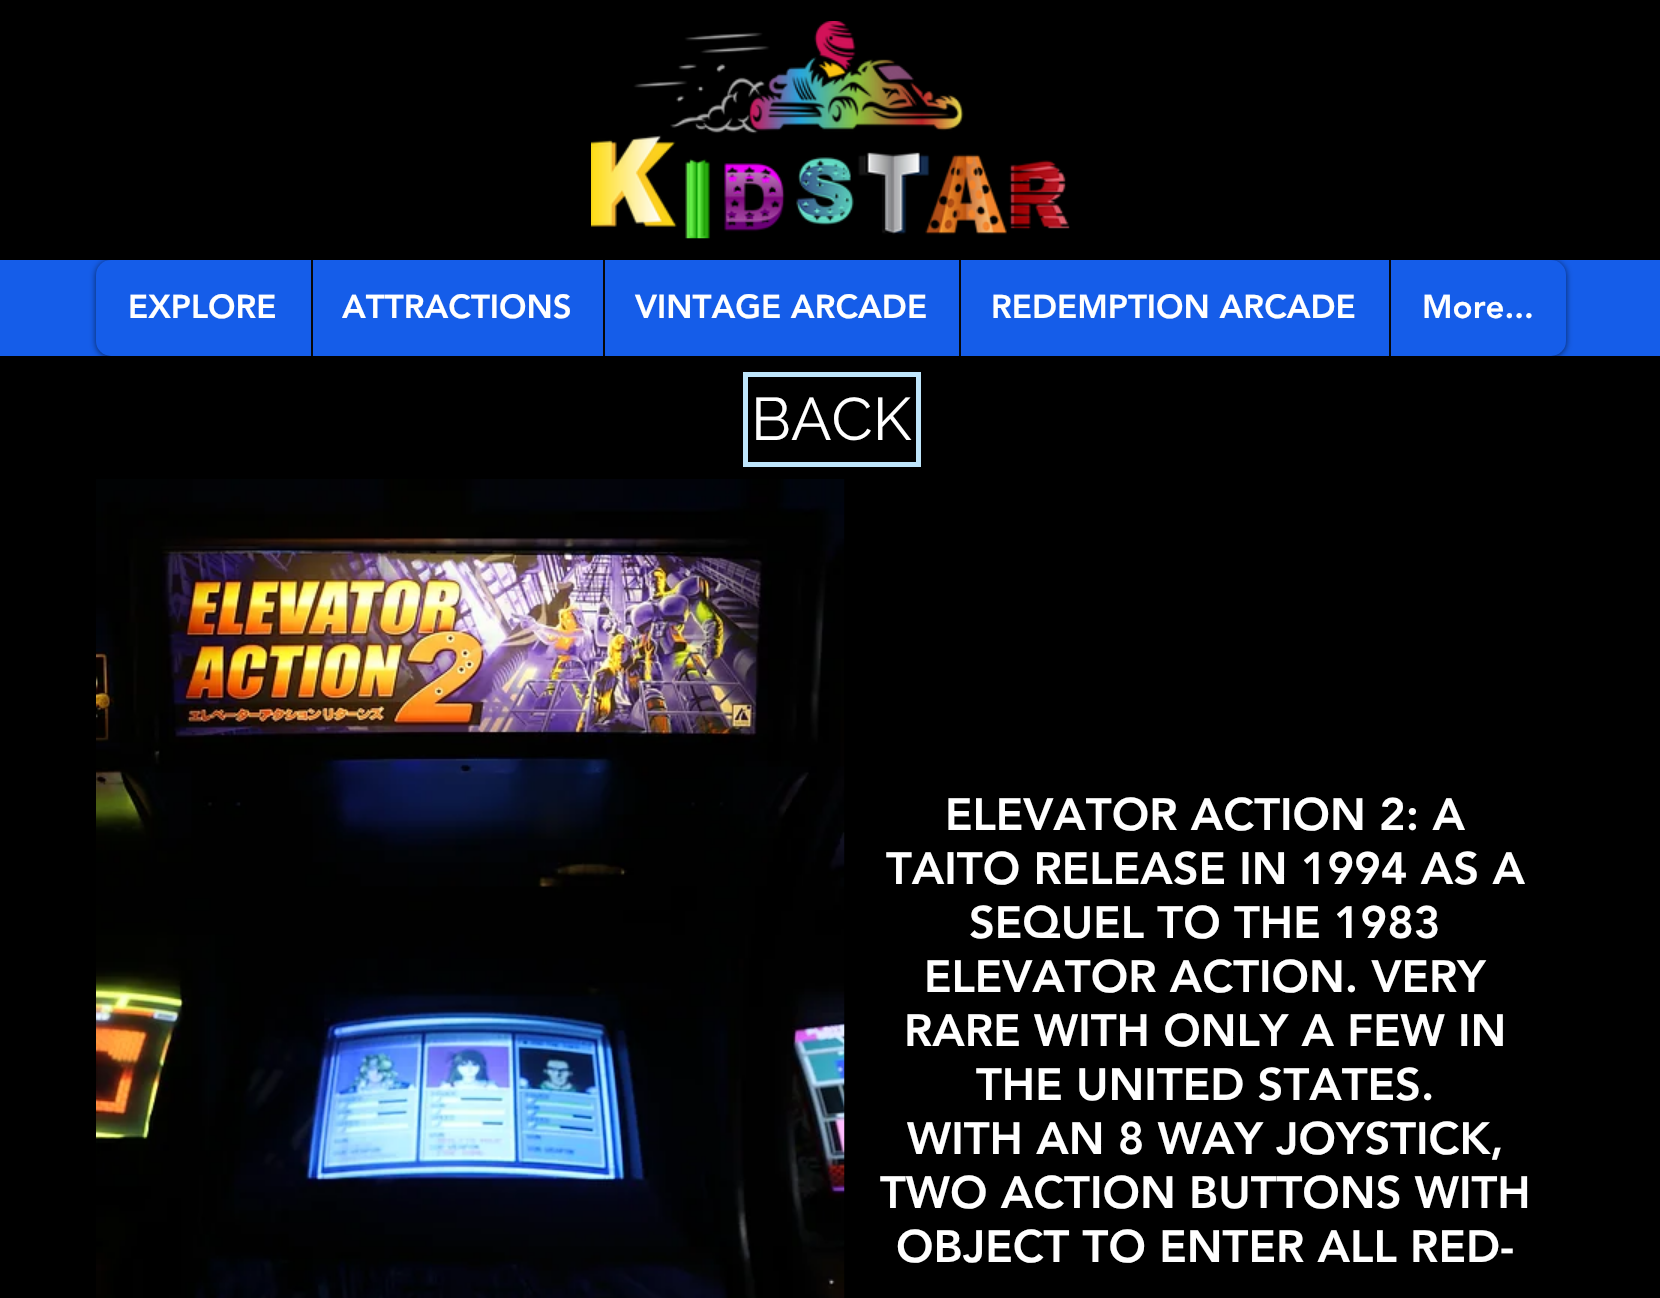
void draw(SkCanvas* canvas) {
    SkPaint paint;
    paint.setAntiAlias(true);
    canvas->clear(0xFF000000);
    canvas->drawImageRect(SkImages::DeferredFromEncodedData(SkData::MakeFromFileName("img1.png")), SkRect::MakeXYWH(591, 21, 479, 218), SkSamplingOptions());
    paint.setColor(0xFF155DE9);
    canvas->drawRect(SkRect::MakeXYWH(0, 260, 1660, 96), paint);
    paint.setColor(0x99000000);
    paint.setMaskFilter(SkMaskFilter::MakeBlur(kNormal_SkBlurStyle, 3));
    canvas->drawRoundRect(SkRect::MakeXYWH(96, 261, 1470, 96), 15, 15, paint);
    paint.setMaskFilter(nullptr);
    paint.setColor(0xFF155DE9);
    canvas->drawRoundRect(SkRect::MakeXYWH(96, 260, 1470, 96), 15, 15, paint);
    SkFont font1(fontMgr->matchFamilyStyle("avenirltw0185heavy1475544", SkFontStyle(900, SkFontStyle::kNormal_Width, SkFontStyle::kUpright_Slant)), 33);
    font1.setSubpixel(true);
    paint.setColor(0xFFFFFFFF);
    canvas->drawString("EXPLORE", 128, 318, font1, paint);
    paint.setColor(0xFF080808);
    canvas->drawRect(SkRect::MakeXYWH(311, 260, 2, 96), paint);
    paint.setColor(0xFFFFFFFF);
    canvas->drawString("ATTRACTIONS", 342, 318, font1, paint);
    paint.setColor(0xFF080808);
    canvas->drawRect(SkRect::MakeXYWH(603, 260, 2, 96), paint);
    paint.setColor(0xFFFFFFFF);
    canvas->drawString("VINTAGE ARCADE", 635, 318, font1, paint);
    paint.setColor(0xFF080808);
    canvas->drawRect(SkRect::MakeXYWH(959, 260, 2, 96), paint);
    paint.setColor(0xFFFFFFFF);
    canvas->drawString("REDEMPTION ARCADE", 991, 318, font1, paint);
    paint.setColor(0xFF080808);
    canvas->drawRect(SkRect::MakeXYWH(1389, 260, 2, 96), paint);
    paint.setColor(0xFFFFFFFF);
    canvas->drawString("More...", 1422, 318, font1, paint);
    paint.setStyle(SkPaint::kStroke_Style);
    paint.setStrokeWidth(5);
    paint.setColor(0xFFBEE5FB);
    canvas->drawRect(SkRect::MakeXYWH(745.5f, 374.5f, 173, 90), paint);
    SkFont font2(fontMgr->matchFamilyStyle("Raleway", SkFontStyle::Normal()), 60);
    font2.setSubpixel(true);
    paint.setStyle(SkPaint::kFill_Style);
    paint.setColor(0xFFFFFFFF);
    canvas->drawString("BACK", 751, 440, font2, paint);
    canvas->drawImageRect(SkImages::DeferredFromEncodedData(SkData::MakeFromFileName("img2.png")), SkRect::MakeXYWH(96, 479, 749, 819), SkSamplingOptions());
    SkFont font3(fontMgr->matchFamilyStyle("avenirltw0185heavy1475544", SkFontStyle(900, SkFontStyle::kNormal_Width, SkFontStyle::kUpright_Slant)), 45);
    font3.setSubpixel(true);
    canvas->drawString("ELEVATOR ACTION 2: A", 945, 830, font3, paint);
    canvas->drawString("TAITO RELEASE IN 1994 AS A", 886, 884, font3, paint);
    canvas->drawString("SEQUEL TO THE 1983", 969, 938, font3, paint);
    canvas->drawString("ELEVATOR ACTION. VERY", 924, 992, font3, paint);
    canvas->drawString("RARE WITH ONLY A FEW IN", 904, 1046, font3, paint);
    canvas->drawString("THE UNITED STATES.", 976, 1100, font3, paint);
    canvas->drawString("WITH AN 8 WAY JOYSTICK,", 907, 1154, font3, paint);
    canvas->drawString("TWO ACTION BUTTONS WITH", 880, 1208, font3, paint);
    canvas->drawString("OBJECT TO ENTER ALL RED-", 896, 1262, font3, paint);
}
